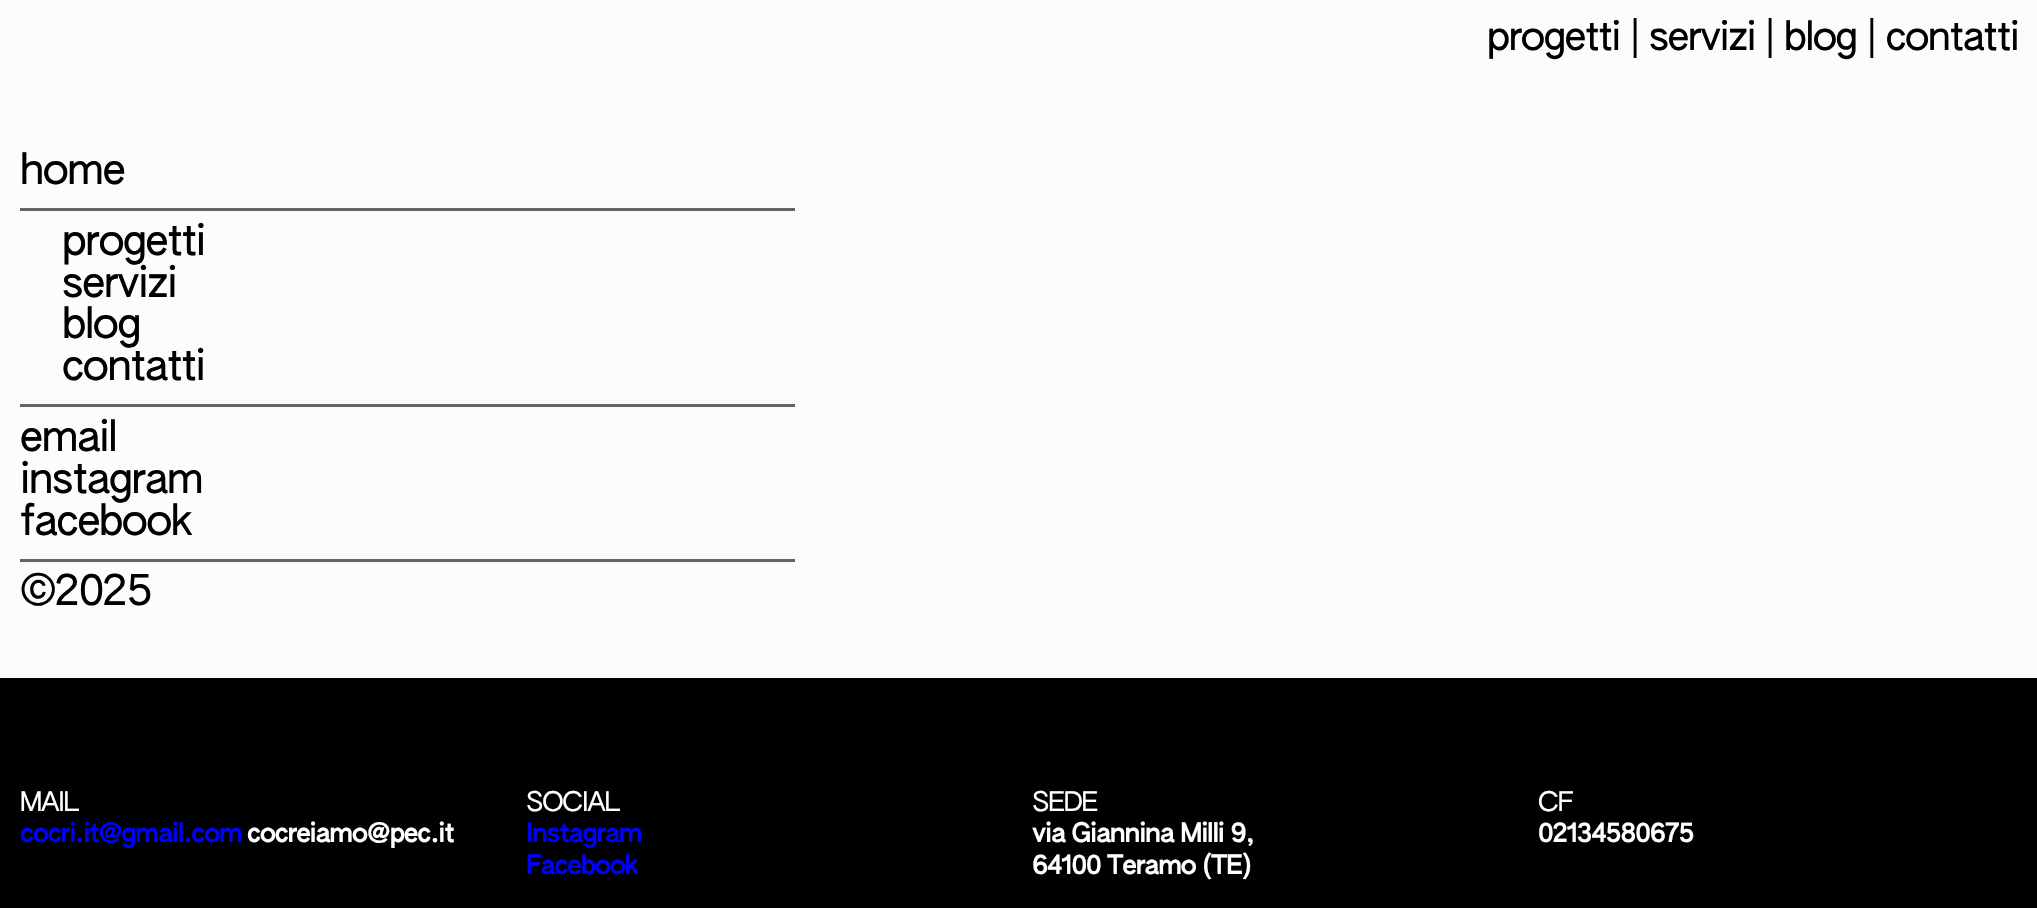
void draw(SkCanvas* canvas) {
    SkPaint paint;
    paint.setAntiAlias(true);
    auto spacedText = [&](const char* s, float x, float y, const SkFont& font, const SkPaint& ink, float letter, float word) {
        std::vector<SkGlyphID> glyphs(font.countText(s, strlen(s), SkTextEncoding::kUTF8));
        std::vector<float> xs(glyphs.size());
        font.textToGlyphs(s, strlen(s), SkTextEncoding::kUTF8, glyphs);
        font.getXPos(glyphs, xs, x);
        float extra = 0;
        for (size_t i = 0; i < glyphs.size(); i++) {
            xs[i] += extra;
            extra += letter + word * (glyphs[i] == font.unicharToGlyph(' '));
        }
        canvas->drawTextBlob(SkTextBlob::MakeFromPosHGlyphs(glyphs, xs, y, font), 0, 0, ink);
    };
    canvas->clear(0xFFFCFCFC);
    SkFont font1(fontMgr->matchFamilyStyle("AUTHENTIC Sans", SkFontStyle::Normal()), 39.25f);
    font1.setSubpixel(true);
    paint.setColor(0xFF000000);
    spacedText("progetti | servizi | blog | contatti", 1487, 50, font1, paint, -1.25f, 0);
    SkFont font2(fontMgr->matchFamilyStyle("AUTHENTIC Sans", SkFontStyle::Normal()), 42);
    font2.setSubpixel(true);
    spacedText("home", 20, 184, font2, paint, -1.25f, 0);
    paint.setColor(0xFF656565);
    canvas->drawRect(SkRect::MakeXYWH(20, 208, 775, 3), paint);
    paint.setColor(0xFF000000);
    spacedText("progetti", 62, 255, font2, paint, -1.25f, 0);
    spacedText("servizi", 62, 297, font2, paint, -1.25f, 0);
    spacedText("blog", 62, 338, font2, paint, -1.25f, 0);
    spacedText("contatti", 62, 380, font2, paint, -1.25f, 0);
    paint.setColor(0xFF656565);
    canvas->drawRect(SkRect::MakeXYWH(20, 404, 775, 3), paint);
    paint.setColor(0xFF000000);
    spacedText("email", 20, 451, font2, paint, -1.25f, 0);
    spacedText("instagram", 20, 493, font2, paint, -1.25f, 0);
    spacedText("facebook", 20, 535, font2, paint, -1.25f, 0);
    paint.setColor(0xFF656565);
    canvas->drawRect(SkRect::MakeXYWH(20, 559, 775, 3), paint);
    paint.setColor(0xFF000000);
    spacedText("©2025", 20, 605, font2, paint, -1.25f, 0);
    canvas->drawRect(SkRect::MakeXYWH(0, 678, 2037, 230), paint);
    SkFont font3(fontMgr->matchFamilyStyle("AUTHENTIC Sans", SkFontStyle::Normal()), 26.25f);
    font3.setSubpixel(true);
    paint.setColor(0xFFFFFFFF);
    spacedText("MAIL", 20, 811, font3, paint, -1.25f, 0);
    SkFont font4(fontMgr->matchFamilyStyle("AUTHENTIC Sans", SkFontStyle(600, SkFontStyle::kNormal_Width, SkFontStyle::kUpright_Slant)), 26.25f);
    font4.setSubpixel(true);
    paint.setColor(0xFF0000FF);
    spacedText("cocri.it@gmail.com", 20, 842, font4, paint, -1.25f, 0);
    paint.setColor(0xFFFFFFFF);
    spacedText("cocreiamo@pec.it", 247, 842, font4, paint, -1.25f, 0);
    spacedText("SOCIAL", 526, 811, font3, paint, -1.25f, 0);
    paint.setColor(0xFF0000FF);
    spacedText("Instagram", 526, 842, font4, paint, -1.25f, 0);
    spacedText("Facebook", 526, 874, font4, paint, -1.25f, 0);
    paint.setColor(0xFFFFFFFF);
    spacedText("SEDE", 1032, 811, font3, paint, -1.25f, 0);
    spacedText("via Giannina Milli 9,", 1032, 842, font4, paint, -1.25f, 0);
    spacedText("64100 Teramo (TE)", 1032, 874, font4, paint, -1.25f, 0);
    spacedText("CF", 1538, 811, font3, paint, -1.25f, 0);
    spacedText("02134580675", 1538, 842, font4, paint, -1.25f, 0);
}
